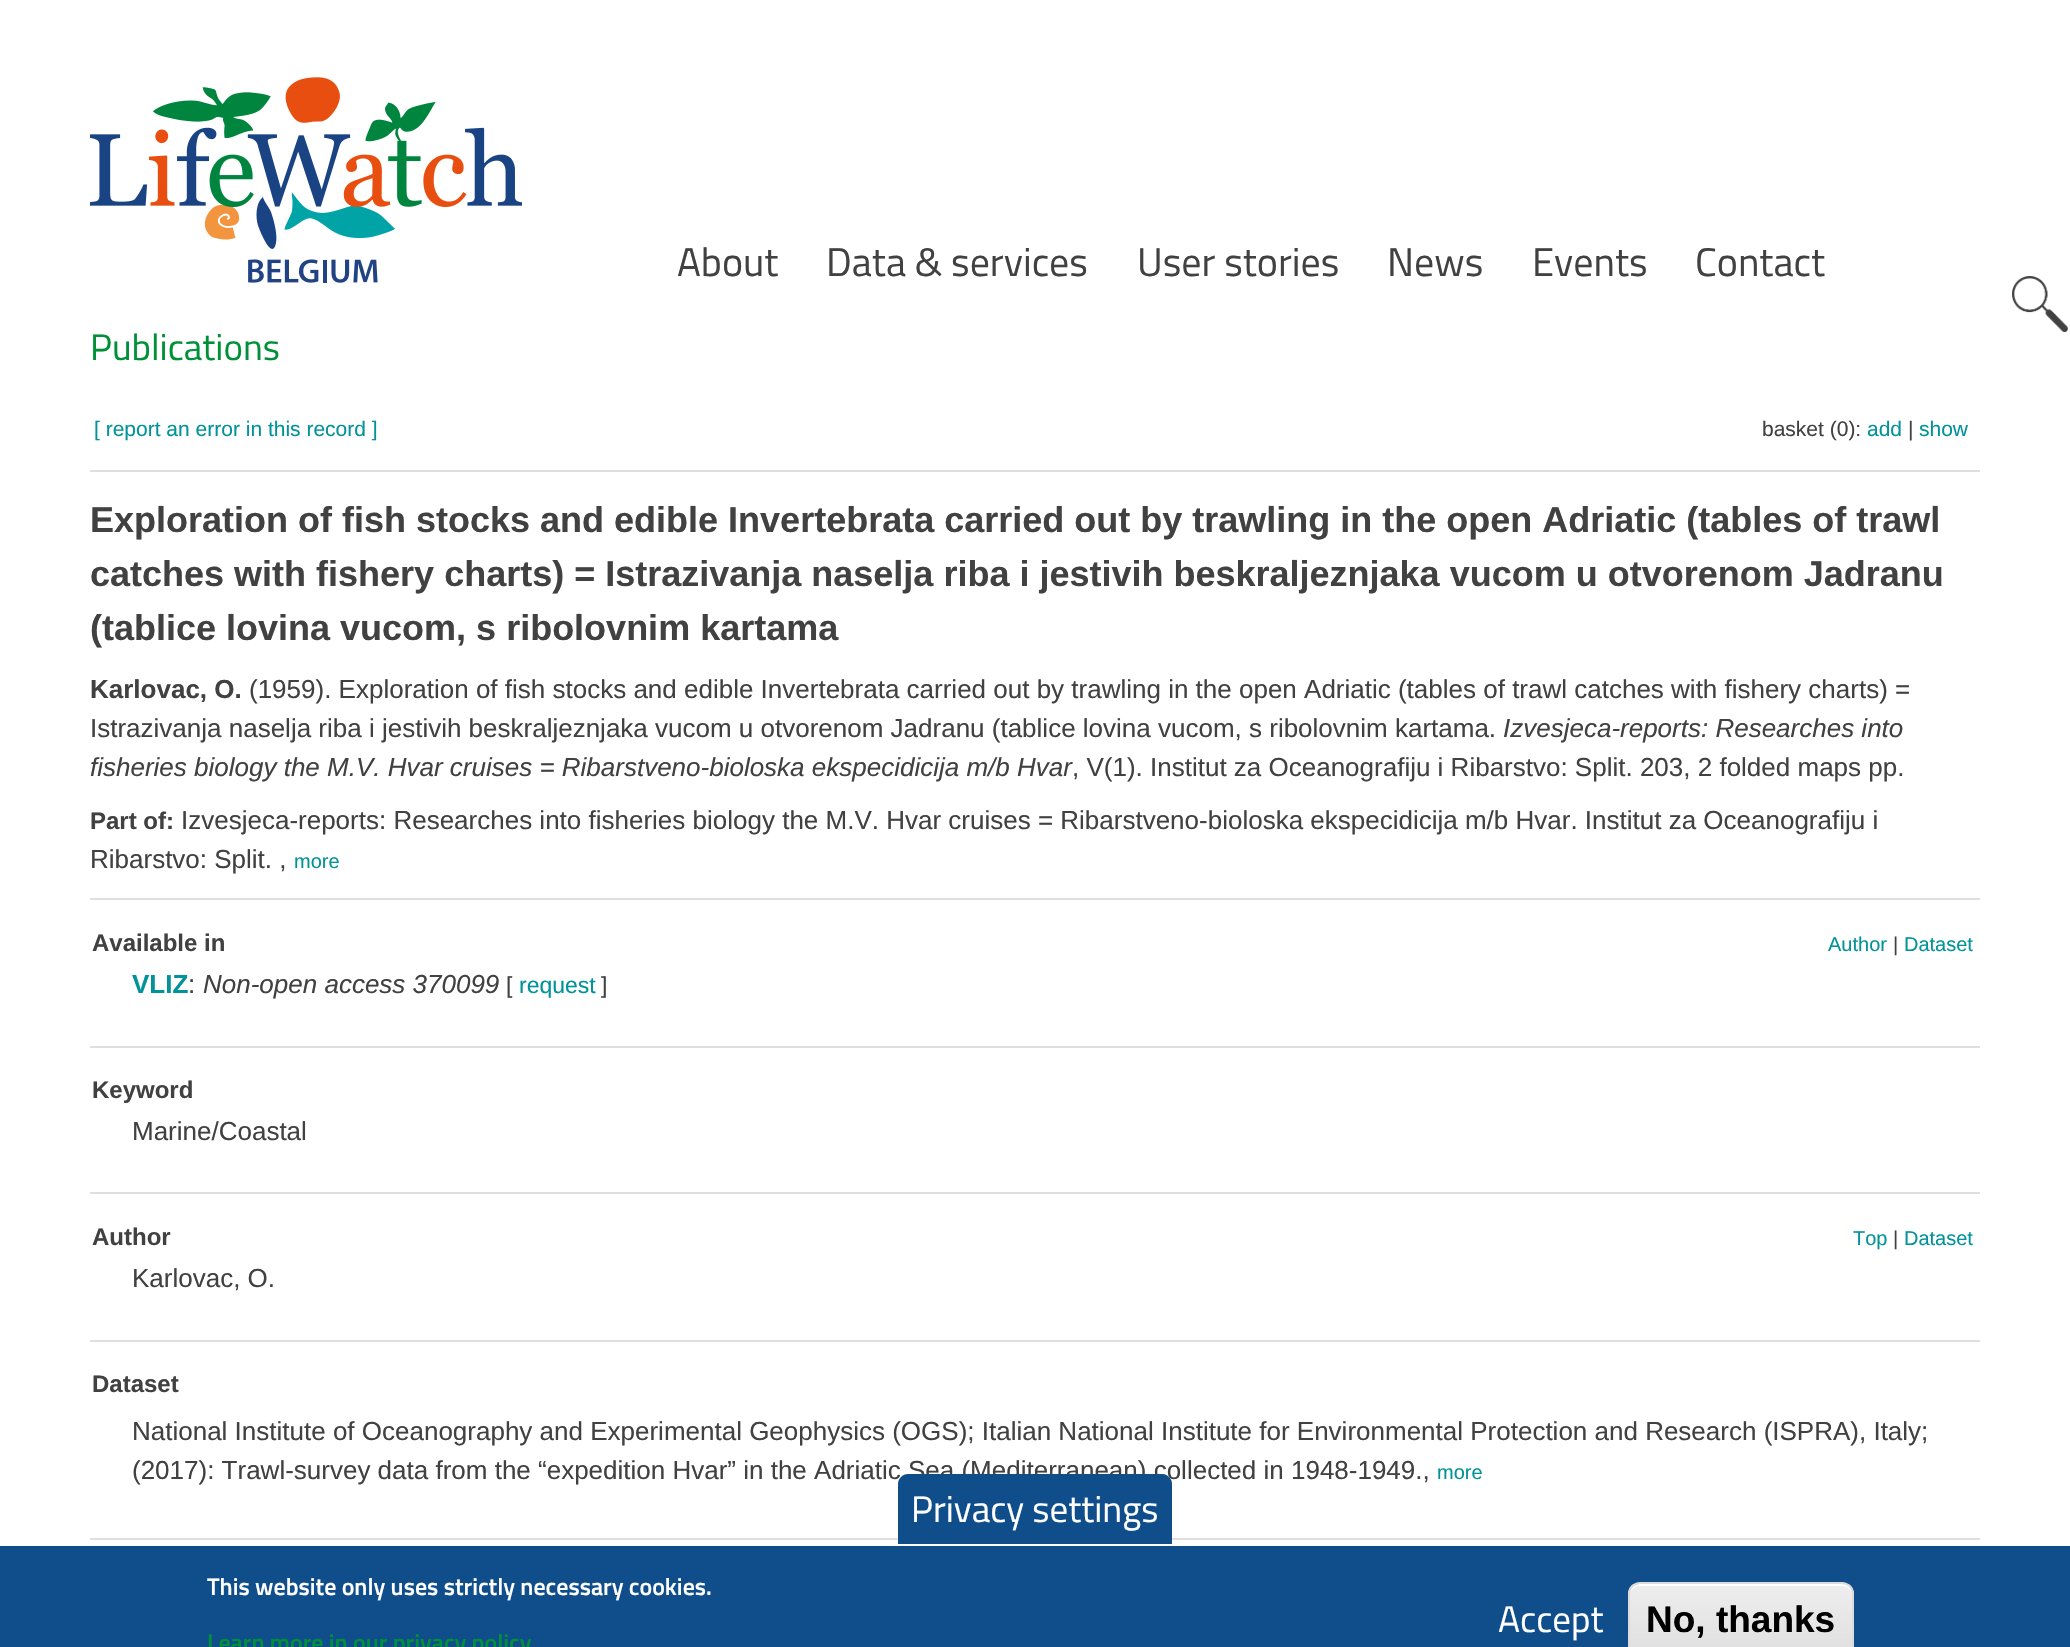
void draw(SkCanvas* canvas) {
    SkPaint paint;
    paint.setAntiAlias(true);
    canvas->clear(0xFFFFFFFF);
    canvas->drawImageRect(SkImages::DeferredFromEncodedData(SkData::MakeFromFileName("img1.png")), SkRect::MakeXYWH(90, 77, 432, 206), SkSamplingOptions());
    SkFont font1(fontMgr->matchFamilyStyle("Titillium Web", SkFontStyle::Normal()), 40);
    font1.setSubpixel(true);
    paint.setColor(0xFF414141);
    canvas->drawString("About", 677, 276, font1, paint);
    canvas->drawString("Data & services", 826, 276, font1, paint);
    canvas->drawString("User stories", 1137, 276, font1, paint);
    canvas->drawString("News", 1387, 276, font1, paint);
    canvas->drawString("Events", 1532, 276, font1, paint);
    canvas->drawString("Contact", 1695, 276, font1, paint);
    canvas->drawImageRect(SkImages::DeferredFromEncodedData(SkData::MakeFromFileName("img2.png")), SkRect::MakeXYWH(2012, 276, 56, 56), SkSamplingOptions());
    SkFont font2(fontMgr->matchFamilyStyle("Titillium Web", SkFontStyle::Normal()), 37);
    font2.setSubpixel(true);
    paint.setColor(0xFF009138);
    canvas->drawString("Publications", 90, 360, font2, paint);
    SkFont font3(fontMgr->matchFamilyStyle("Liberation Sans", SkFontStyle::Normal()), 21);
    font3.setSubpixel(true);
    paint.setColor(0xFF009399);
    canvas->drawString("[ report an error in this record ]", 94, 436, font3, paint);
    paint.setColor(0xFF414141);
    canvas->drawString("basket (0):", 1762, 436, font3, paint);
    paint.setColor(0xFF009399);
    canvas->drawString("add", 1867, 436, font3, paint);
    paint.setColor(0xFF414141);
    canvas->drawString("|", 1908, 436, font3, paint);
    paint.setColor(0xFF009399);
    canvas->drawString("show", 1919, 436, font3, paint);
    paint.setColor(0xFFDFDFDF);
    canvas->drawRect(SkRect::MakeXYWH(90, 470, 1890, 2), paint);
    SkFont font4(fontMgr->matchFamilyStyle("Liberation Sans", SkFontStyle::Bold()), 36);
    font4.setSubpixel(true);
    paint.setColor(0xFF414141);
    canvas->drawString("Exploration of fish stocks and edible Invertebrata carried out by trawling in the open Adriatic (tables of trawl", 90, 532, font4, paint);
    canvas->drawString("catches with fishery charts) = Istrazivanja naselja riba i jestivih beskraljeznjaka vucom u otvorenom Jadranu", 90, 586, font4, paint);
    canvas->drawString("(tablice lovina vucom, s ribolovnim kartama", 90, 640, font4, paint);
    SkFont font5(fontMgr->matchFamilyStyle("Liberation Sans", SkFontStyle::Bold()), 26);
    font5.setSubpixel(true);
    canvas->drawString("Karlovac, O.", 90, 698, font5, paint);
    SkFont font6(fontMgr->matchFamilyStyle("Liberation Sans", SkFontStyle::Normal()), 26);
    font6.setSubpixel(true);
    canvas->drawString("(1959). Exploration of fish stocks and edible Invertebrata carried out by trawling in the open Adriatic (tables of trawl catches with fishery charts) =", 249, 698, font6, paint);
    canvas->drawString("Istrazivanja naselja riba i jestivih beskraljeznjaka vucom u otvorenom Jadranu (tablice lovina vucom, s ribolovnim kartama.", 90, 737, font6, paint);
    SkFont font7(fontMgr->matchFamilyStyle("Liberation Sans", SkFontStyle::Italic()), 26);
    font7.setSubpixel(true);
    canvas->drawString("Izvesjeca-reports: Researches into", 1503, 737, font7, paint);
    canvas->drawString("fisheries biology the M.V. Hvar cruises = Ribarstveno-bioloska ekspecidicija m/b Hvar", 90, 776, font7, paint);
    canvas->drawString(", V(1). Institut za Oceanografiju i Ribarstvo: Split. 203, 2 folded maps pp.", 1072, 776, font6, paint);
    SkFont font8(fontMgr->matchFamilyStyle("Liberation Sans", SkFontStyle::Bold()), 24);
    font8.setSubpixel(true);
    canvas->drawString("Part of:", 90, 829, font8, paint);
    canvas->drawString("Izvesjeca-reports: Researches into fisheries biology the M.V. Hvar cruises = Ribarstveno-bioloska ekspecidicija m/b Hvar. Institut za Oceanografiju i", 181, 829, font6, paint);
    canvas->drawString("Ribarstvo: Split. ,", 90, 868, font6, paint);
    SkFont font9(fontMgr->matchFamilyStyle("Liberation Sans", SkFontStyle::Normal()), 20);
    font9.setSubpixel(true);
    paint.setColor(0xFF009399);
    canvas->drawString("more", 294, 868, font9, paint);
    paint.setColor(0xFFDFDFDF);
    canvas->drawRect(SkRect::MakeXYWH(90, 898, 1890, 2), paint);
    paint.setColor(0xFF414141);
    canvas->drawString("Available in", 92, 951, font8, paint);
    paint.setColor(0xFF009399);
    canvas->drawString("Author", 1828, 951, font9, paint);
    paint.setColor(0xFF414141);
    canvas->drawString("|", 1893, 951, font9, paint);
    paint.setColor(0xFF009399);
    canvas->drawString("Dataset", 1904, 951, font9, paint);
    canvas->drawString("VLIZ", 132, 993, font5, paint);
    paint.setColor(0xFF414141);
    canvas->drawString(":", 188, 993, font6, paint);
    canvas->drawString("Non-open access 370099", 203, 993, font7, paint);
    SkFont font10(fontMgr->matchFamilyStyle("Liberation Sans", SkFontStyle::Normal()), 23);
    font10.setSubpixel(true);
    canvas->drawString("[", 506, 993, font10, paint);
    paint.setColor(0xFF009399);
    canvas->drawString("request", 519, 993, font10, paint);
    paint.setColor(0xFF414141);
    canvas->drawString("]", 601, 993, font10, paint);
    paint.setColor(0xFFDFDFDF);
    canvas->drawRect(SkRect::MakeXYWH(90, 1046, 1890, 2), paint);
    paint.setColor(0xFF414141);
    canvas->drawString("Keyword", 92, 1098, font8, paint);
    canvas->drawString("Marine/Coastal", 132, 1140, font6, paint);
    paint.setColor(0xFFDFDFDF);
    canvas->drawRect(SkRect::MakeXYWH(90, 1192, 1890, 2), paint);
    paint.setColor(0xFF414141);
    canvas->drawString("Author", 92, 1245, font8, paint);
    paint.setColor(0xFF009399);
    canvas->drawString("Top", 1853, 1245, font9, paint);
    paint.setColor(0xFF414141);
    canvas->drawString("|", 1893, 1245, font9, paint);
    paint.setColor(0xFF009399);
    canvas->drawString("Dataset", 1904, 1245, font9, paint);
    paint.setColor(0xFF414141);
    canvas->drawString("Karlovac, O.", 132, 1287, font6, paint);
    paint.setColor(0xFFDFDFDF);
    canvas->drawRect(SkRect::MakeXYWH(90, 1340, 1890, 2), paint);
    paint.setColor(0xFF414141);
    canvas->drawString("Dataset", 92, 1392, font8, paint);
    canvas->drawString("National Institute of Oceanography and Experimental Geophysics (OGS); Italian National Institute for Environmental Protection and Research (ISPRA), Italy;", 132, 1440, font6, paint);
    canvas->drawString("(2017): Trawl-survey data from the “expedition Hvar” in the Adriatic Sea (Mediterranean) collected in 1948-1949.,", 132, 1479, font6, paint);
    paint.setColor(0xFF009399);
    canvas->drawString("more", 1437, 1479, font9, paint);
    paint.setColor(0xFFDFDFDF);
    canvas->drawRect(SkRect::MakeXYWH(90, 1538, 1890, 2), paint);
    paint.setColor(0xFF0F4E8A);
    canvas->drawRect(SkRect::MakeXYWH(0, 1546, 2070, 101), paint);
    canvas->drawPath(SkPathBuilder().moveTo(908, 1474).lineTo(1162, 1474).cubicTo(1167.5f, 1474, 1172, 1478.5f, 1172, 1484).lineTo(1172, 1544).lineTo(898, 1544).lineTo(898, 1484).cubicTo(898, 1478.5f, 902.5f, 1474, 908, 1474).close().detach(), paint);
    paint.setColor(0xFFFFFFFF);
    canvas->drawString("Privacy settings", 911, 1522, font2, paint);
    SkFont font11(fontMgr->matchFamilyStyle("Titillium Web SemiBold", SkFontStyle(600, SkFontStyle::kNormal_Width, SkFontStyle::kUpright_Slant)), 24);
    font11.setSubpixel(true);
    canvas->drawString("This website only uses strictly necessary cookies.", 207, 1595, font11, paint);
    paint.setColor(0xFF009138);
    canvas->drawString("Learn more in our privacy policy", 207, 1651, font11, paint);
    paint.setColor(0xFFFFFFFF);
    canvas->drawString("Accept", 1498, 1632, font2, paint);
    canvas->save();
    canvas->clipPath(SkPathBuilder().moveTo(1640, 1582).lineTo(1842, 1582).cubicTo(1848.5f, 1582, 1854, 1587.5f, 1854, 1594).lineTo(1854, 1646).cubicTo(1854, 1652.5f, 1848.5f, 1658, 1842, 1658).lineTo(1640, 1658).cubicTo(1633.5f, 1658, 1628, 1652.5f, 1628, 1646).lineTo(1628, 1594).cubicTo(1628, 1587.5f, 1633.5f, 1582, 1640, 1582).close().detach(), true);
    {
        const SkColor colors[] = {0xFFEDEDED, 0xFFDFDFDF};
        const float stops[] = {0.05f, 1};
        const SkPoint ends[] = {{1741, 1584}, {1741, 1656}};
        paint.setShader(SkGradientShader::MakeLinear(ends, colors, stops, 2, SkTileMode::kClamp));
        paint.setAlpha(255);
    }
    canvas->drawRect(SkRect::MakeXYWH(1628, 1584, 226, 63), paint);
    canvas->restore();
    paint.setShader(nullptr);
    paint.setColor(0xFFFFFFFF);
    canvas->drawPath(SkPathBuilder().moveTo(1640, 1586).lineTo(1842, 1586).cubicTo(1848, 1586, 1852, 1590, 1852, 1596).lineTo(1852, 1594).cubicTo(1852, 1588, 1848, 1584, 1842, 1584).lineTo(1640, 1584).cubicTo(1634, 1584, 1630, 1588, 1630, 1594).lineTo(1630, 1596).cubicTo(1630, 1590, 1634, 1586, 1640, 1586).close().detach(), paint);
    paint.setStyle(SkPaint::kStroke_Style);
    paint.setStrokeWidth(2);
    paint.setColor(0xFFDCDCDC);
    canvas->drawRoundRect(SkRect::MakeXYWH(1629, 1583, 224, 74), 11, 11, paint);
    SkFont font12(fontMgr->matchFamilyStyle("Liberation Sans", SkFontStyle::Bold()), 37);
    font12.setSubpixel(true);
    paint.setStyle(SkPaint::kFill_Style);
    paint.setColor(0xFF000000);
    canvas->drawString("No, thanks", 1646, 1632, font12, paint);
}
